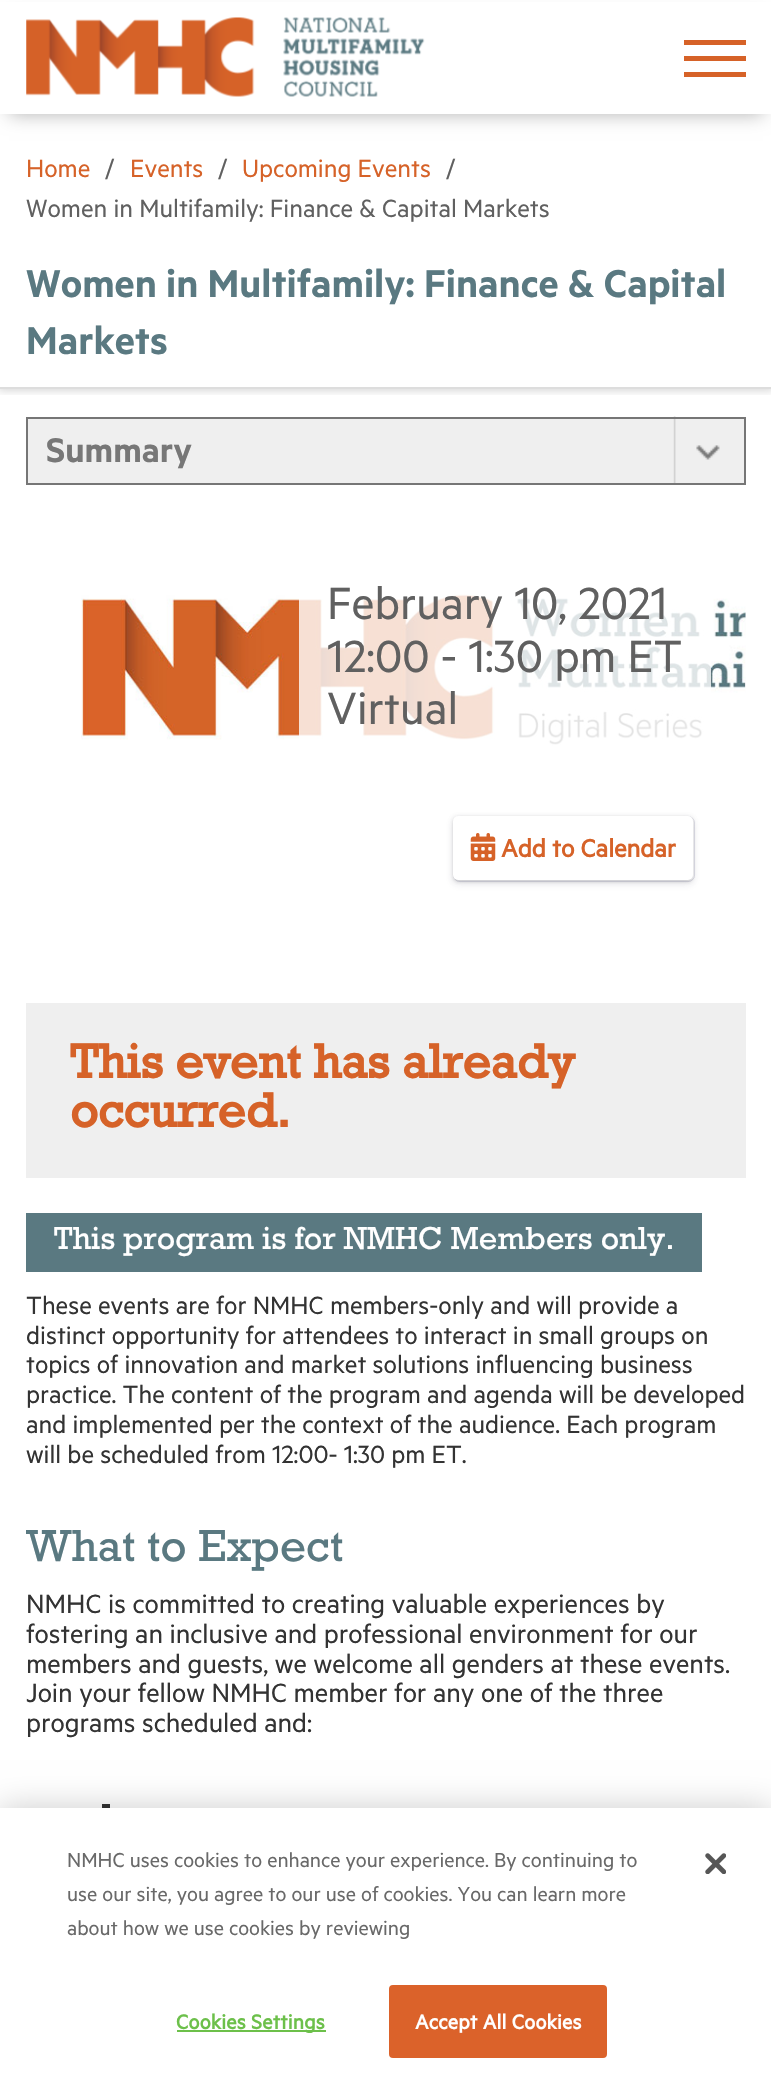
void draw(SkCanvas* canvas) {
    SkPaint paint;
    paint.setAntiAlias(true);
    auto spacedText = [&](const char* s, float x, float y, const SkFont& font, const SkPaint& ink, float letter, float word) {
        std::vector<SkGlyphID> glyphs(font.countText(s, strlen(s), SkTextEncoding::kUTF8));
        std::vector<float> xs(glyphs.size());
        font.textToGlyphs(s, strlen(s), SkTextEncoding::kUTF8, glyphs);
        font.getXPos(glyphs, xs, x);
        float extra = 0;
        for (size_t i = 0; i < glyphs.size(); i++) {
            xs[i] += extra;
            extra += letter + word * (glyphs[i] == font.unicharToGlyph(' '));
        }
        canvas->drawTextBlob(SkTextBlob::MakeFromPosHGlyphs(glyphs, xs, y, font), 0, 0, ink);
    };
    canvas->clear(0xFFFFFFFF);
    paint.setColor(0x4D000000);
    paint.setMaskFilter(SkMaskFilter::MakeBlur(kNormal_SkBlurStyle, 9));
    canvas->drawRect(SkRect::MakeXYWH(9, 18, 754, 96), paint);
    paint.setMaskFilter(nullptr);
    canvas->save();
    canvas->clipRect(SkRect::MakeXYWH(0, 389, 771, 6));
    paint.setColor(0x2E000000);
    paint.setMaskFilter(SkMaskFilter::MakeBlur(kNormal_SkBlurStyle, 4.5f));
    canvas->drawRect(SkRect::MakeXYWH(-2, 112, 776, 278), paint);
    paint.setMaskFilter(nullptr);
    canvas->restore();
    paint.setColor(0xFFFFFFFF);
    canvas->drawRect(SkRect::MakeXYWH(0, 2, 771, 112), paint);
    canvas->drawImageRect(SkImages::DeferredFromEncodedData(SkData::MakeFromFileName("img1.png")), SkRect::MakeXYWH(26, 17, 229, 80), SkSamplingOptions());
    canvas->drawImageRect(SkImages::DeferredFromEncodedData(SkData::MakeFromFileName("img2.png")), SkRect::MakeXYWH(283, 17, 142, 80), SkSamplingOptions());
    paint.setColor(0xFFD66228);
    canvas->drawRect(SkRect::MakeXYWH(684, 40, 62, 5), paint);
    canvas->drawRect(SkRect::MakeXYWH(684, 56, 62, 5), paint);
    canvas->drawRect(SkRect::MakeXYWH(684, 72, 62, 5), paint);
    paint.setColor(0xFFDDDDDD);
    canvas->drawRect(SkRect::MakeXYWH(0, 387, 771, 2), paint);
    SkFont font1(fontMgr->matchFamilyStyle("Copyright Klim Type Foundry", SkFontStyle::Normal()), 28);
    font1.setSubpixel(true);
    paint.setColor(0xFFD66228);
    canvas->drawString("Home", 26, 177, font1, paint);
    paint.setColor(0xFF606060);
    canvas->drawString("/", 105, 177, font1, paint);
    paint.setColor(0xFFD66228);
    canvas->drawString("Events", 130, 177, font1, paint);
    paint.setColor(0xFF606060);
    canvas->drawString("/", 218, 177, font1, paint);
    paint.setColor(0xFFD66228);
    canvas->drawString("Upcoming Events", 242, 177, font1, paint);
    paint.setColor(0xFF606060);
    canvas->drawString("/", 446, 177, font1, paint);
    canvas->drawString("Women in Multifamily: Finance & Capital Markets", 26, 217, font1, paint);
    SkFont font2(fontMgr->matchFamilyStyle("Copyright Klim Type Foundry", SkFontStyle(600, SkFontStyle::kNormal_Width, SkFontStyle::kUpright_Slant)), 43.75f);
    font2.setSubpixel(true);
    paint.setColor(0xFF5A7981);
    canvas->drawString("Women in Multifamily: Finance & Capital", 26, 297, font2, paint);
    canvas->drawString("Markets", 26, 354, font2, paint);
    paint.setColor(0xFFEFEFEF);
    canvas->drawRect(SkRect::MakeXYWH(28, 419, 716, 64), paint);
    canvas->drawImageRect(SkImages::DeferredFromEncodedData(SkData::MakeFromFileName("img3.png")), SkRect::MakeXYWH(673, 416, 47, 67), SkSamplingOptions());
    paint.setStyle(SkPaint::kStroke_Style);
    paint.setStrokeWidth(2);
    paint.setColor(0xFF767676);
    canvas->drawRect(SkRect::MakeXYWH(27, 418, 718, 66), paint);
    SkFont font3(fontMgr->matchFamilyStyle("Copyright Klim Type Foundry", SkFontStyle(600, SkFontStyle::kNormal_Width, SkFontStyle::kUpright_Slant)), 38.5f);
    font3.setSubpixel(true);
    paint.setStyle(SkPaint::kFill_Style);
    paint.setColor(0xFF777777);
    canvas->drawString("Summary", 46, 462, font3, paint);
    canvas->drawImageRect(SkImages::DeferredFromEncodedData(SkData::MakeFromFileName("img4.png")), SkRect::MakeXYWH(81, 591, 665, 155), SkSamplingOptions());
    paint.setColor(0xCCFFFFFF);
    canvas->drawRect(SkRect::MakeXYWH(299, 591, 412, 155), paint);
    SkFont font4(fontMgr->matchFamilyStyle("Copyright Klim Type Foundry", SkFontStyle::Normal()), 50.75f);
    font4.setSubpixel(true);
    paint.setColor(0xFF606060);
    canvas->drawString("February 10, 2021", 327, 619, font4, paint);
    canvas->drawString("12:00 - 1:30 pm ET", 327, 672, font4, paint);
    canvas->drawString("Virtual", 327, 724, font4, paint);
    paint.setColor(0x14000000);
    paint.setMaskFilter(SkMaskFilter::MakeBlur(kNormal_SkBlurStyle, 2));
    canvas->drawRoundRect(SkRect::MakeXYWH(453, 817, 240, 65), 5, 5, paint);
    paint.setMaskFilter(nullptr);
    paint.setColor(0x12000000);
    paint.setMaskFilter(SkMaskFilter::MakeBlur(kNormal_SkBlurStyle, 1.5f));
    canvas->drawRoundRect(SkRect::MakeXYWH(453, 817, 240, 65), 5, 5, paint);
    paint.setMaskFilter(nullptr);
    paint.setColor(0x1A32325D);
    paint.setMaskFilter(SkMaskFilter::MakeBlur(kNormal_SkBlurStyle, 4.5f));
    canvas->drawRoundRect(SkRect::MakeXYWH(453, 819, 240, 65), 5, 5, paint);
    paint.setMaskFilter(nullptr);
    paint.setStyle(SkPaint::kStroke_Style);
    paint.setStrokeWidth(0.9f);
    paint.setColor(0x2B32325D);
    canvas->drawRoundRect(SkRect::MakeXYWH(453.45f, 816.45f, 241.1f, 65.1f), 6.55f, 6.55f, paint);
    paint.setStyle(SkPaint::kFill_Style);
    paint.setColor(0xFFFFFFFF);
    canvas->drawRoundRect(SkRect::MakeXYWH(453, 816, 240, 64), 5, 5, paint);
    canvas->drawImageRect(SkImages::DeferredFromEncodedData(SkData::MakeFromFileName("img5.png")), SkRect::MakeXYWH(470, 833, 26, 28), SkSamplingOptions());
    SkFont font5(fontMgr->matchFamilyStyle("Copyright Klim Type Foundry", SkFontStyle::Bold()), 28);
    font5.setSubpixel(true);
    paint.setColor(0xFFD66228);
    canvas->drawString("Add to Calendar", 501, 857, font5, paint);
    paint.setColor(0xFFEFEFEF);
    canvas->drawRect(SkRect::MakeXYWH(26, 1003, 720, 175), paint);
    SkFont font6(fontMgr->matchFamilyStyle("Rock", SkFontStyle::Bold()), 49);
    font6.setSubpixel(true);
    paint.setColor(0xFFD66228);
    canvas->drawString("This event has already", 70, 1078, font6, paint);
    canvas->drawString("occurred.", 70, 1127, font6, paint);
    paint.setColor(0xFF5A7981);
    canvas->drawRect(SkRect::MakeXYWH(26, 1213, 676, 59), paint);
    SkFont font7(fontMgr->matchFamilyStyle("Rock", SkFontStyle::Normal()), 32.25f);
    font7.setSubpixel(true);
    paint.setColor(0xFFFFFFFF);
    canvas->drawString("This program is for NMHC Members only.", 54, 1249, font7, paint);
    paint.setColor(0xFF333333);
    canvas->drawString("These events are for NMHC members-only and will provide a", 26, 1314, font1, paint);
    canvas->drawString("distinct opportunity for attendees to interact in small groups on", 26, 1344, font1, paint);
    canvas->drawString("topics of innovation and market solutions influencing business", 26, 1373, font1, paint);
    canvas->drawString("practice. The content of the program and agenda will be developed", 26, 1403, font1, paint);
    canvas->drawString("and implemented per the context of the audience. Each program", 26, 1433, font1, paint);
    canvas->drawString("will be scheduled from 12:00- 1:30 pm ET.", 26, 1463, font1, paint);
    SkFont font8(fontMgr->matchFamilyStyle("Rock", SkFontStyle::Normal()), 45.5f);
    font8.setSubpixel(true);
    paint.setColor(0xFF5A7981);
    canvas->drawString("What to Expect", 26, 1561, font8, paint);
    SkFont font9(fontMgr->matchFamilyStyle("Copyright Klim Type Foundry", SkFontStyle::Normal()), 29.75f);
    font9.setSubpixel(true);
    paint.setColor(0xFF333333);
    canvas->drawString("NMHC is committed to creating valuable experiences by", 26, 1613, font9, paint);
    canvas->drawString("fostering an inclusive and professional environment for our", 26, 1643, font9, paint);
    canvas->drawString("members and guests, we welcome all genders at these events.", 26, 1673, font9, paint);
    canvas->drawString("Join your fellow NMHC member for any one of the three", 26, 1702, font9, paint);
    canvas->drawString("programs scheduled and:", 26, 1732, font9, paint);
    canvas->drawRect(SkRect::MakeXYWH(102, 1804, 8, 9), paint);
    paint.setColor(0x33000000);
    paint.setMaskFilter(SkMaskFilter::MakeBlur(kNormal_SkBlurStyle, 16));
    canvas->drawRect(SkRect::MakeXYWH(0, 1808, 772, 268), paint);
    paint.setMaskFilter(nullptr);
    paint.setColor(0xFFFFFFFF);
    canvas->drawRect(SkRect::MakeXYWH(0, 1808, 771, 266), paint);
    SkFont font10(fontMgr->matchFamilyStyle("Copyright Klim Type Foundry", SkFontStyle::Normal()), 22.75f);
    font10.setSubpixel(true);
    paint.setColor(0xFF696969);
    canvas->drawString("NMHC uses cookies to enhance your experience. By continuing to", 67, 1867, font10, paint);
    canvas->drawString("use our site, you agree to our use of cookies. You can learn more", 67, 1901, font10, paint);
    canvas->drawString("about how we use cookies by reviewing", 67, 1935, font10, paint);
    paint.setColor(0xFF6CC04A);
    canvas->drawRect(SkRect::MakeXYWH(177, 2030, 149, 2), paint);
    SkFont font11(fontMgr->matchFamilyStyle("Copyright Klim Type Foundry", SkFontStyle::Bold()), 22.75f);
    font11.setSubpixel(true);
    spacedText("Cookies Settings", 176, 2029, font11, paint, 0.25f, 0);
    paint.setColor(0xFFDB622A);
    canvas->drawRoundRect(SkRect::MakeXYWH(390, 1986, 216, 71), 3, 3, paint);
    paint.setStyle(SkPaint::kStroke_Style);
    paint.setStrokeWidth(2);
    canvas->drawRoundRect(SkRect::MakeXYWH(390, 1986, 216, 71), 3, 3, paint);
    paint.setStyle(SkPaint::kFill_Style);
    paint.setColor(0xFFFFFFFF);
    spacedText("Accept All Cookies", 415, 2029, font11, paint, 0.25f, 0);
    canvas->drawImageRect(SkImages::DeferredFromEncodedData(SkData::MakeFromFileName("img6.png")), SkRect::MakeXYWH(705, 1853, 21, 21), SkSamplingOptions());
}
